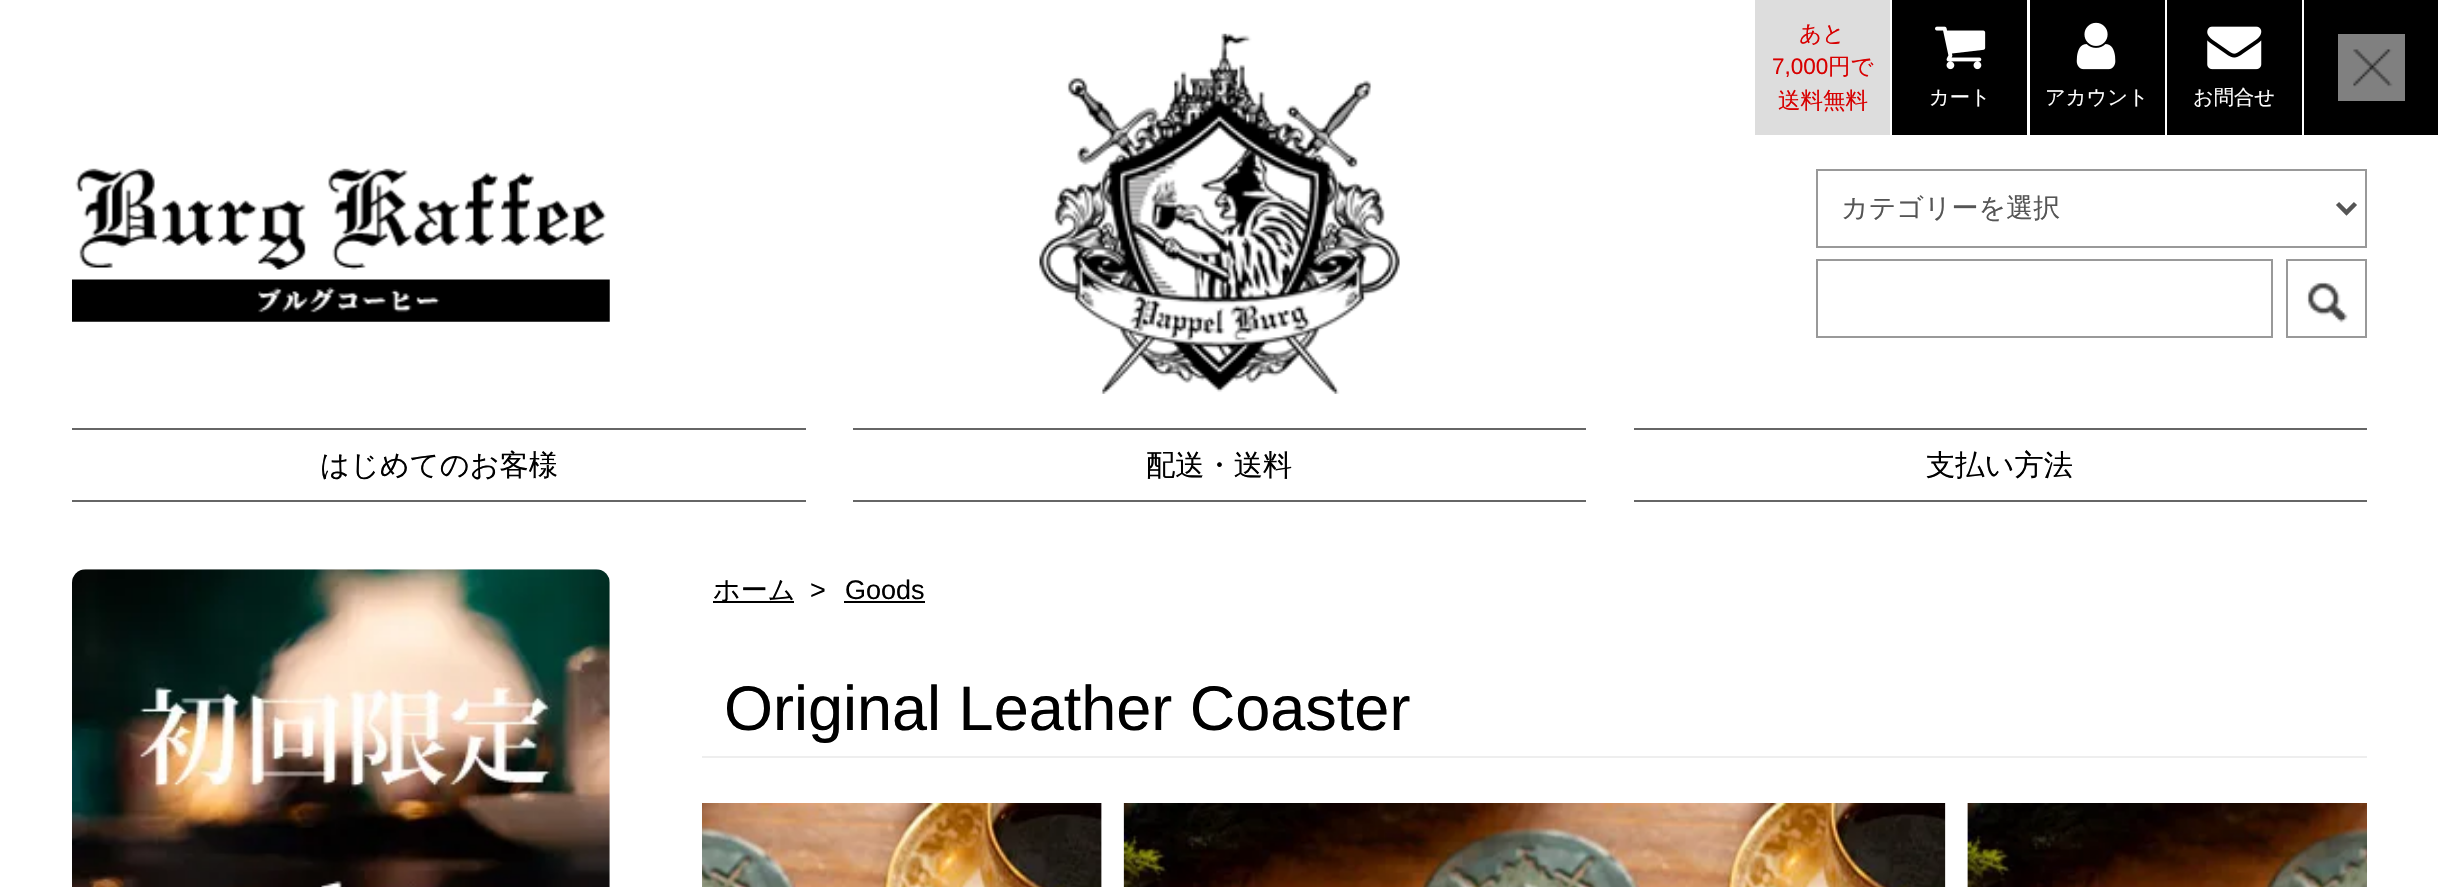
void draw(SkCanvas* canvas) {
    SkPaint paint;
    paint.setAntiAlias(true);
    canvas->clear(0xFFFFFFFF);
    paint.setColor(0xFFDDDDDD);
    canvas->drawRect(SkRect::MakeXYWH(1755, 0, 135, 135), paint);
    SkFont font1(fontMgr->matchFamilyStyle("WenQuanYi Zen Hei", SkFontStyle(500, SkFontStyle::kNormal_Width, SkFontStyle::kUpright_Slant)), 22.5f);
    font1.setSubpixel(true);
    paint.setColor(0xFFD80000);
    canvas->drawString("あと", 1799, 41, font1, paint);
    SkFont font2(fontMgr->matchFamilyStyle("Liberation Sans", SkFontStyle::Normal()), 22.5f);
    font2.setSubpixel(true);
    canvas->drawString("7,000", 1772, 74, font2, paint);
    canvas->drawString("円で", 1828, 74, font1, paint);
    canvas->drawString("送料無料", 1778, 108, font1, paint);
    paint.setColor(0xFF000000);
    canvas->drawRect(SkRect::MakeXYWH(1892, 0, 135, 135), paint);
    canvas->drawImageRect(SkImages::DeferredFromEncodedData(SkData::MakeFromFileName("img1.png")), SkRect::MakeXYWH(1935, 26, 51, 44), SkSamplingOptions());
    SkFont font3(fontMgr->matchFamilyStyle("WenQuanYi Zen Hei", SkFontStyle(500, SkFontStyle::kNormal_Width, SkFontStyle::kUpright_Slant)), 20.25f);
    font3.setSubpixel(true);
    paint.setColor(0xFFFFFFFF);
    canvas->drawString("カート", 1929, 104, font3, paint);
    paint.setColor(0xFF000000);
    canvas->drawRect(SkRect::MakeXYWH(2030, 0, 135, 135), paint);
    canvas->drawImageRect(SkImages::DeferredFromEncodedData(SkData::MakeFromFileName("img2.png")), SkRect::MakeXYWH(2076, 22, 40, 48), SkSamplingOptions());
    paint.setColor(0xFFFFFFFF);
    canvas->drawString("アカウント", 2045, 104, font3, paint);
    paint.setColor(0xFF000000);
    canvas->drawRect(SkRect::MakeXYWH(2167, 0, 135, 135), paint);
    canvas->drawImageRect(SkImages::DeferredFromEncodedData(SkData::MakeFromFileName("img3.png")), SkRect::MakeXYWH(2207, 26, 55, 44), SkSamplingOptions());
    paint.setColor(0xFFFFFFFF);
    canvas->drawString("お問合せ", 2193, 104, font3, paint);
    paint.setColor(0xFF000000);
    canvas->drawRect(SkRect::MakeXYWH(2304, 0, 134, 135), paint);
    paint.setColor(0xFF808080);
    canvas->drawRect(SkRect::MakeXYWH(2338, 34, 67, 67), paint);
    canvas->drawImageRect(SkImages::DeferredFromEncodedData(SkData::MakeFromFileName("img4.png")), SkRect::MakeXYWH(2353, 49, 40, 38), SkSamplingOptions());
    canvas->drawImageRect(SkImages::DeferredFromEncodedData(SkData::MakeFromFileName("img5.png")), SkRect::MakeXYWH(72, 168, 538, 154), SkSamplingOptions());
    canvas->drawImageRect(SkImages::DeferredFromEncodedData(SkData::MakeFromFileName("img6.png")), SkRect::MakeXYWH(1039, 33, 361, 361), SkSamplingOptions());
    paint.setStyle(SkPaint::kStroke_Style);
    paint.setStrokeWidth(2);
    paint.setColor(0xFF999999);
    canvas->drawRect(SkRect::MakeXYWH(1817, 170, 549, 77), paint);
    paint.setStrokeWidth(4.5f);
    paint.setColor(0xFF555555);
    canvas->drawPath(SkPathBuilder().moveTo(2337.5f, 203.5f).lineTo(2346.5f, 212.5f).lineTo(2355.5f, 203.5f).detach(), paint);
    SkFont font4(fontMgr->matchFamilyStyle("WenQuanYi Zen Hei", SkFontStyle(500, SkFontStyle::kNormal_Width, SkFontStyle::kUpright_Slant)), 27);
    font4.setSubpixel(true);
    paint.setStyle(SkPaint::kFill_Style);
    canvas->drawString("カテゴリーを選択", 1841, 217, font4, paint);
    paint.setStyle(SkPaint::kStroke_Style);
    paint.setStrokeWidth(2);
    paint.setColor(0xFF999999);
    canvas->drawRect(SkRect::MakeXYWH(1817, 260, 455, 77), paint);
    canvas->drawRect(SkRect::MakeXYWH(2287, 260, 79, 77), paint);
    canvas->drawImageRect(SkImages::DeferredFromEncodedData(SkData::MakeFromFileName("img7.png")), SkRect::MakeXYWH(2306, 281, 42, 42), SkSamplingOptions());
    paint.setStyle(SkPaint::kFill_Style);
    paint.setColor(0xFF666666);
    canvas->drawRect(SkRect::MakeXYWH(72, 428, 734, 2), paint);
    canvas->drawRect(SkRect::MakeXYWH(72, 500, 734, 2), paint);
    SkFont font5(fontMgr->matchFamilyStyle("WenQuanYi Zen Hei", SkFontStyle(500, SkFontStyle::kNormal_Width, SkFontStyle::kUpright_Slant)), 29.25f);
    font5.setSubpixel(true);
    paint.setColor(0xFF000000);
    canvas->drawString("はじめてのお客様", 320, 475, font5, paint);
    paint.setColor(0xFF666666);
    canvas->drawRect(SkRect::MakeXYWH(853, 428, 733, 2), paint);
    canvas->drawRect(SkRect::MakeXYWH(853, 500, 733, 2), paint);
    paint.setColor(0xFF000000);
    canvas->drawString("配送・送料", 1146, 475, font5, paint);
    paint.setColor(0xFF666666);
    canvas->drawRect(SkRect::MakeXYWH(1634, 428, 733, 2), paint);
    canvas->drawRect(SkRect::MakeXYWH(1634, 500, 733, 2), paint);
    paint.setColor(0xFF000000);
    canvas->drawString("支払い方法", 1926, 475, font5, paint);
    canvas->drawImageRect(SkImages::DeferredFromEncodedData(SkData::MakeFromFileName("img8.png")), SkRect::MakeXYWH(72, 569, 538, 318), SkSamplingOptions());
    canvas->drawRect(SkRect::MakeXYWH(713, 601, 81, 2), paint);
    canvas->drawString("ホーム", 713, 599, font4, paint);
    SkFont font6(fontMgr->matchFamilyStyle("Liberation Sans", SkFontStyle::Normal()), 27);
    font6.setSubpixel(true);
    canvas->drawString(">", 810, 599, font6, paint);
    canvas->drawString("Goods", 845, 599, font6, paint);
    canvas->drawRect(SkRect::MakeXYWH(844, 601, 81, 2), paint);
    paint.setColor(0xFFEEEEEE);
    canvas->drawRect(SkRect::MakeXYWH(702, 756, 1665, 2), paint);
    SkFont font7(fontMgr->matchFamilyStyle("Liberation Sans", SkFontStyle::Normal()), 63);
    font7.setSubpixel(true);
    paint.setColor(0xFF000000);
    canvas->drawString("Original Leather Coaster", 724, 730, font7, paint);
    canvas->drawImageRect(SkImages::DeferredFromEncodedData(SkData::MakeFromFileName("img9.png")), SkRect::MakeXYWH(702, 803, 400, 84), SkSamplingOptions());
    canvas->drawImageRect(SkImages::DeferredFromEncodedData(SkData::MakeFromFileName("img10.png")), SkRect::MakeXYWH(1123, 803, 823, 84), SkSamplingOptions());
    canvas->drawImageRect(SkImages::DeferredFromEncodedData(SkData::MakeFromFileName("img11.png")), SkRect::MakeXYWH(1967, 803, 400, 84), SkSamplingOptions());
}
